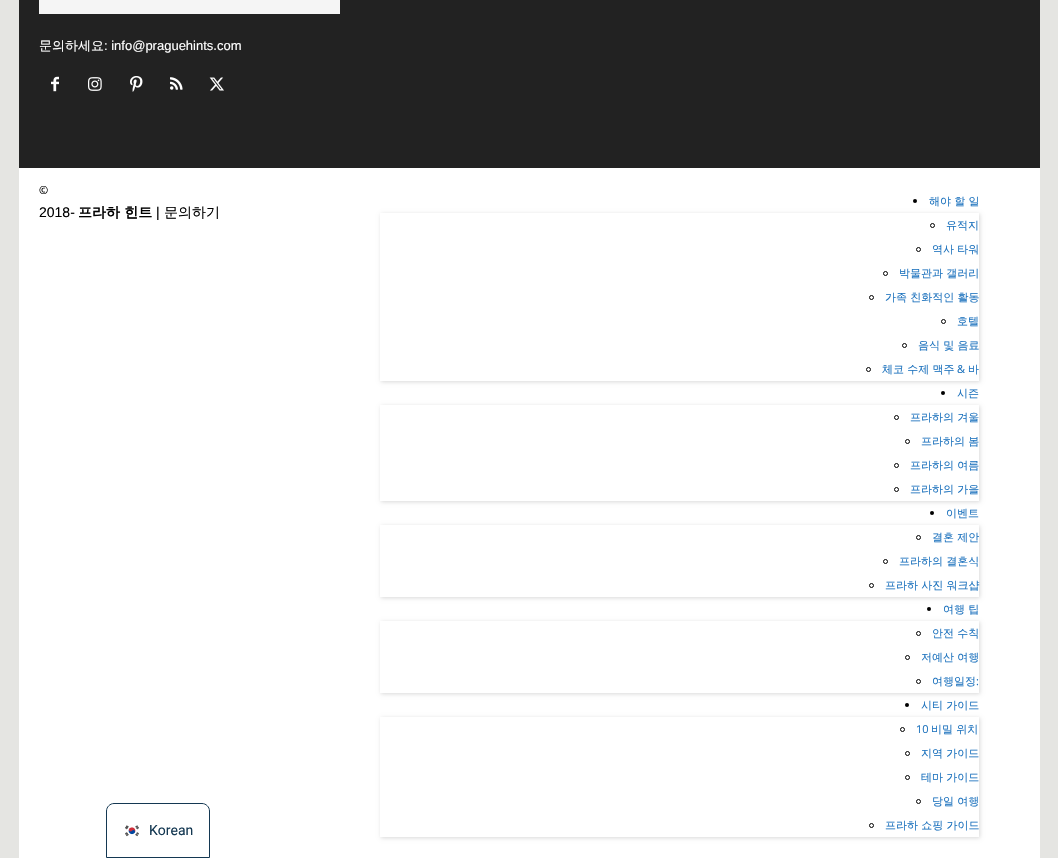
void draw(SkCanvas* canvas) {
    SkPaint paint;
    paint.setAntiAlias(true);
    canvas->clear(0xFFE5E5E2);
    paint.setColor(0xFF222222);
    canvas->drawRect(SkRect::MakeXYWH(19, 0, 1021, 168), paint);
    paint.setColor(0xFFF5F5F5);
    canvas->drawRect(SkRect::MakeXYWH(39, 0, 301, 14), paint);
    SkFont font1(fontMgr->matchFamilyStyle("WenQuanYi Zen Hei", SkFontStyle(500, SkFontStyle::kNormal_Width, SkFontStyle::kUpright_Slant)), 13);
    font1.setSubpixel(true);
    paint.setColor(0xFFFFFFFF);
    canvas->drawString("문의하세요", 39, 50, font1, paint);
    SkFont font2(fontMgr->matchFamilyStyle("Liberation Sans", SkFontStyle::Normal()), 13);
    font2.setSubpixel(true);
    canvas->drawString(": info@praguehints.com", 104, 50, font2, paint);
    canvas->drawImageRect(SkImages::DeferredFromEncodedData(SkData::MakeFromFileName("img1.png")), SkRect::MakeXYWH(51, 76, 8, 16), SkSamplingOptions());
    canvas->drawImageRect(SkImages::DeferredFromEncodedData(SkData::MakeFromFileName("img2.png")), SkRect::MakeXYWH(88, 77, 14, 14), SkSamplingOptions());
    canvas->drawImageRect(SkImages::DeferredFromEncodedData(SkData::MakeFromFileName("img3.png")), SkRect::MakeXYWH(130, 76, 13, 16), SkSamplingOptions());
    canvas->drawImageRect(SkImages::DeferredFromEncodedData(SkData::MakeFromFileName("img4.png")), SkRect::MakeXYWH(170, 77, 13, 13), SkSamplingOptions());
    canvas->drawImageRect(SkImages::DeferredFromEncodedData(SkData::MakeFromFileName("img5.png")), SkRect::MakeXYWH(209, 77, 15, 14), SkSamplingOptions());
    canvas->drawRect(SkRect::MakeXYWH(19, 168, 1021, 690), paint);
    SkFont font3(fontMgr->matchFamilyStyle("Open Sans", SkFontStyle::Normal()), 11);
    font3.setSubpixel(true);
    paint.setColor(0xFF000000);
    canvas->drawString("©", 39, 194, font3, paint);
    SkFont font4(fontMgr->matchFamilyStyle("Liberation Sans", SkFontStyle::Normal()), 14);
    font4.setSubpixel(true);
    canvas->drawString("2018-", 39, 217, font4, paint);
    SkFont font5(fontMgr->matchFamilyStyle("WenQuanYi Zen Hei", SkFontStyle::Bold()), 14);
    font5.setSubpixel(true);
    canvas->drawString("프라하 힌트", 78, 217, font5, paint);
    canvas->drawString("|", 156, 217, font4, paint);
    SkFont font6(fontMgr->matchFamilyStyle("WenQuanYi Zen Hei", SkFontStyle(500, SkFontStyle::kNormal_Width, SkFontStyle::kUpright_Slant)), 14);
    font6.setSubpixel(true);
    canvas->drawString("문의하기", 164, 217, font6, paint);
    canvas->drawCircle(915, 201, 2, paint);
    SkFont font7(fontMgr->matchFamilyStyle("WenQuanYi Zen Hei", SkFontStyle(500, SkFontStyle::kNormal_Width, SkFontStyle::kUpright_Slant)), 11);
    font7.setSubpixel(true);
    paint.setColor(0xFF1E73BE);
    canvas->drawString("해야 할 일", 929, 205, font7, paint);
    canvas->save();
    canvas->clipPath(SkPathBuilder(SkPathFillType::kEvenOdd).moveTo(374, 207).lineTo(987, 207).lineTo(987, 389).lineTo(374, 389).close().moveTo(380, 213).lineTo(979, 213).lineTo(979, 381).lineTo(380, 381).close().detach(), true);
    paint.setColor(0x26000000);
    paint.setMaskFilter(SkMaskFilter::MakeBlur(kNormal_SkBlurStyle, 2));
    canvas->drawRect(SkRect::MakeXYWH(381, 214, 599, 168), paint);
    paint.setMaskFilter(nullptr);
    canvas->restore();
    paint.setStyle(SkPaint::kStroke_Style);
    paint.setStrokeWidth(1);
    paint.setColor(0xFF000000);
    canvas->drawCircle(932.5f, 225.5f, 2, paint);
    paint.setStyle(SkPaint::kFill_Style);
    paint.setColor(0xFF1E73BE);
    canvas->drawString("유적지", 946, 229, font7, paint);
    paint.setStyle(SkPaint::kStroke_Style);
    paint.setColor(0xFF000000);
    canvas->drawCircle(918.5f, 249.5f, 2, paint);
    paint.setStyle(SkPaint::kFill_Style);
    paint.setColor(0xFF1E73BE);
    canvas->drawString("역사 타워", 932, 253, font7, paint);
    paint.setStyle(SkPaint::kStroke_Style);
    paint.setColor(0xFF000000);
    canvas->drawCircle(885.5f, 273.5f, 2, paint);
    paint.setStyle(SkPaint::kFill_Style);
    paint.setColor(0xFF1E73BE);
    canvas->drawString("박물관과 갤러리", 899, 277, font7, paint);
    paint.setStyle(SkPaint::kStroke_Style);
    paint.setColor(0xFF000000);
    canvas->drawCircle(871.5f, 297.5f, 2, paint);
    paint.setStyle(SkPaint::kFill_Style);
    paint.setColor(0xFF1E73BE);
    canvas->drawString("가족 친화적인 활동", 885, 301, font7, paint);
    paint.setStyle(SkPaint::kStroke_Style);
    paint.setColor(0xFF000000);
    canvas->drawCircle(943.5f, 321.5f, 2, paint);
    paint.setStyle(SkPaint::kFill_Style);
    paint.setColor(0xFF1E73BE);
    canvas->drawString("호텔", 957, 325, font7, paint);
    paint.setStyle(SkPaint::kStroke_Style);
    paint.setColor(0xFF000000);
    canvas->drawCircle(904.5f, 345.5f, 2, paint);
    paint.setStyle(SkPaint::kFill_Style);
    paint.setColor(0xFF1E73BE);
    canvas->drawString("음식 및 음료", 918, 349, font7, paint);
    paint.setStyle(SkPaint::kStroke_Style);
    paint.setColor(0xFF000000);
    canvas->drawCircle(868.5f, 369.5f, 2, paint);
    paint.setStyle(SkPaint::kFill_Style);
    paint.setColor(0xFF1E73BE);
    canvas->drawString("체코 수제 맥주", 882, 373, font7, paint);
    canvas->drawString("&", 957, 373, font3, paint);
    canvas->drawString("바", 968, 373, font7, paint);
    paint.setColor(0xFF000000);
    canvas->drawCircle(943, 393, 2, paint);
    paint.setColor(0xFF1E73BE);
    canvas->drawString("시즌", 957, 397, font7, paint);
    canvas->save();
    canvas->clipPath(SkPathBuilder(SkPathFillType::kEvenOdd).moveTo(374, 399).lineTo(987, 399).lineTo(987, 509).lineTo(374, 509).close().moveTo(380, 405).lineTo(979, 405).lineTo(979, 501).lineTo(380, 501).close().detach(), true);
    paint.setColor(0x26000000);
    paint.setMaskFilter(SkMaskFilter::MakeBlur(kNormal_SkBlurStyle, 2));
    canvas->drawRect(SkRect::MakeXYWH(381, 406, 599, 96), paint);
    paint.setMaskFilter(nullptr);
    canvas->restore();
    paint.setStyle(SkPaint::kStroke_Style);
    paint.setColor(0xFF000000);
    canvas->drawCircle(896.5f, 417.5f, 2, paint);
    paint.setStyle(SkPaint::kFill_Style);
    paint.setColor(0xFF1E73BE);
    canvas->drawString("프라하의 겨울", 910, 421, font7, paint);
    paint.setStyle(SkPaint::kStroke_Style);
    paint.setColor(0xFF000000);
    canvas->drawCircle(907.5f, 441.5f, 2, paint);
    paint.setStyle(SkPaint::kFill_Style);
    paint.setColor(0xFF1E73BE);
    canvas->drawString("프라하의 봄", 921, 445, font7, paint);
    paint.setStyle(SkPaint::kStroke_Style);
    paint.setColor(0xFF000000);
    canvas->drawCircle(896.5f, 465.5f, 2, paint);
    paint.setStyle(SkPaint::kFill_Style);
    paint.setColor(0xFF1E73BE);
    canvas->drawString("프라하의 여름", 910, 469, font7, paint);
    paint.setStyle(SkPaint::kStroke_Style);
    paint.setColor(0xFF000000);
    canvas->drawCircle(896.5f, 489.5f, 2, paint);
    paint.setStyle(SkPaint::kFill_Style);
    paint.setColor(0xFF1E73BE);
    canvas->drawString("프라하의 가을", 910, 493, font7, paint);
    paint.setColor(0xFF000000);
    canvas->drawCircle(932, 513, 2, paint);
    paint.setColor(0xFF1E73BE);
    canvas->drawString("이벤트", 946, 517, font7, paint);
    canvas->save();
    canvas->clipPath(SkPathBuilder(SkPathFillType::kEvenOdd).moveTo(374, 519).lineTo(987, 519).lineTo(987, 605).lineTo(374, 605).close().moveTo(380, 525).lineTo(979, 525).lineTo(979, 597).lineTo(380, 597).close().detach(), true);
    paint.setColor(0x26000000);
    paint.setMaskFilter(SkMaskFilter::MakeBlur(kNormal_SkBlurStyle, 2));
    canvas->drawRect(SkRect::MakeXYWH(381, 526, 599, 72), paint);
    paint.setMaskFilter(nullptr);
    canvas->restore();
    paint.setStyle(SkPaint::kStroke_Style);
    paint.setColor(0xFF000000);
    canvas->drawCircle(918.5f, 537.5f, 2, paint);
    paint.setStyle(SkPaint::kFill_Style);
    paint.setColor(0xFF1E73BE);
    canvas->drawString("결혼 제안", 932, 541, font7, paint);
    paint.setStyle(SkPaint::kStroke_Style);
    paint.setColor(0xFF000000);
    canvas->drawCircle(885.5f, 561.5f, 2, paint);
    paint.setStyle(SkPaint::kFill_Style);
    paint.setColor(0xFF1E73BE);
    canvas->drawString("프라하의 결혼식", 899, 565, font7, paint);
    paint.setStyle(SkPaint::kStroke_Style);
    paint.setColor(0xFF000000);
    canvas->drawCircle(871.5f, 585.5f, 2, paint);
    paint.setStyle(SkPaint::kFill_Style);
    paint.setColor(0xFF1E73BE);
    canvas->drawString("프라하 사진 워크샵", 885, 589, font7, paint);
    paint.setColor(0xFF000000);
    canvas->drawCircle(929, 609, 2, paint);
    paint.setColor(0xFF1E73BE);
    canvas->drawString("여행 팁", 943, 613, font7, paint);
    canvas->save();
    canvas->clipPath(SkPathBuilder(SkPathFillType::kEvenOdd).moveTo(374, 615).lineTo(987, 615).lineTo(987, 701).lineTo(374, 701).close().moveTo(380, 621).lineTo(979, 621).lineTo(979, 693).lineTo(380, 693).close().detach(), true);
    paint.setColor(0x26000000);
    paint.setMaskFilter(SkMaskFilter::MakeBlur(kNormal_SkBlurStyle, 2));
    canvas->drawRect(SkRect::MakeXYWH(381, 622, 599, 72), paint);
    paint.setMaskFilter(nullptr);
    canvas->restore();
    paint.setStyle(SkPaint::kStroke_Style);
    paint.setColor(0xFF000000);
    canvas->drawCircle(918.5f, 633.5f, 2, paint);
    paint.setStyle(SkPaint::kFill_Style);
    paint.setColor(0xFF1E73BE);
    canvas->drawString("안전 수칙", 932, 637, font7, paint);
    paint.setStyle(SkPaint::kStroke_Style);
    paint.setColor(0xFF000000);
    canvas->drawCircle(907.5f, 657.5f, 2, paint);
    paint.setStyle(SkPaint::kFill_Style);
    paint.setColor(0xFF1E73BE);
    canvas->drawString("저예산 여행", 921, 661, font7, paint);
    paint.setStyle(SkPaint::kStroke_Style);
    paint.setColor(0xFF000000);
    canvas->drawCircle(918.5f, 681.5f, 2, paint);
    paint.setStyle(SkPaint::kFill_Style);
    paint.setColor(0xFF1E73BE);
    canvas->drawString("여행일정", 932, 685, font7, paint);
    canvas->drawString(":", 976, 685, font3, paint);
    paint.setColor(0xFF000000);
    canvas->drawCircle(907, 705, 2, paint);
    paint.setColor(0xFF1E73BE);
    canvas->drawString("시티 가이드", 921, 709, font7, paint);
    canvas->save();
    canvas->clipPath(SkPathBuilder(SkPathFillType::kEvenOdd).moveTo(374, 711).lineTo(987, 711).lineTo(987, 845).lineTo(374, 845).close().moveTo(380, 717).lineTo(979, 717).lineTo(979, 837).lineTo(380, 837).close().detach(), true);
    paint.setColor(0x26000000);
    paint.setMaskFilter(SkMaskFilter::MakeBlur(kNormal_SkBlurStyle, 2));
    canvas->drawRect(SkRect::MakeXYWH(381, 718, 599, 120), paint);
    paint.setMaskFilter(nullptr);
    canvas->restore();
    paint.setStyle(SkPaint::kStroke_Style);
    paint.setColor(0xFF000000);
    canvas->drawCircle(902.5f, 729.5f, 2, paint);
    paint.setStyle(SkPaint::kFill_Style);
    paint.setColor(0xFF1E73BE);
    canvas->drawString("10", 916, 733, font3, paint);
    canvas->drawString("비밀 위치", 931, 733, font7, paint);
    paint.setStyle(SkPaint::kStroke_Style);
    paint.setColor(0xFF000000);
    canvas->drawCircle(907.5f, 753.5f, 2, paint);
    paint.setStyle(SkPaint::kFill_Style);
    paint.setColor(0xFF1E73BE);
    canvas->drawString("지역 가이드", 921, 757, font7, paint);
    paint.setStyle(SkPaint::kStroke_Style);
    paint.setColor(0xFF000000);
    canvas->drawCircle(907.5f, 777.5f, 2, paint);
    paint.setStyle(SkPaint::kFill_Style);
    paint.setColor(0xFF1E73BE);
    canvas->drawString("테마 가이드", 921, 781, font7, paint);
    paint.setStyle(SkPaint::kStroke_Style);
    paint.setColor(0xFF000000);
    canvas->drawCircle(918.5f, 801.5f, 2, paint);
    paint.setStyle(SkPaint::kFill_Style);
    paint.setColor(0xFF1E73BE);
    canvas->drawString("당일 여행", 932, 805, font7, paint);
    paint.setStyle(SkPaint::kStroke_Style);
    paint.setColor(0xFF000000);
    canvas->drawCircle(871.5f, 825.5f, 2, paint);
    paint.setStyle(SkPaint::kFill_Style);
    paint.setColor(0xFF1E73BE);
    canvas->drawString("프라하 쇼핑 가이드", 885, 829, font7, paint);
    paint.setStyle(SkPaint::kStroke_Style);
    paint.setColor(0xFF143852);
    canvas->drawPath(SkPathBuilder().moveTo(114, 803.5f).lineTo(202, 803.5f).cubicTo(206, 803.5f, 209.5f, 807, 209.5f, 811).lineTo(209.5f, 857.5f).lineTo(106.5f, 857.5f).lineTo(106.5f, 811).cubicTo(106.5f, 807, 110, 803.5f, 114, 803.5f).close().detach(), paint);
    canvas->drawImageRect(SkImages::DeferredFromEncodedData(SkData::MakeFromFileName("img6.png")), SkRect::MakeXYWH(125, 825, 14, 12), SkSamplingOptions());
    SkFont font8(fontMgr->matchFamilyStyle("Roboto", SkFontStyle::Normal()), 14);
    font8.setSubpixel(true);
    paint.setStyle(SkPaint::kFill_Style);
    canvas->drawString("Korean", 149, 835, font8, paint);
}
